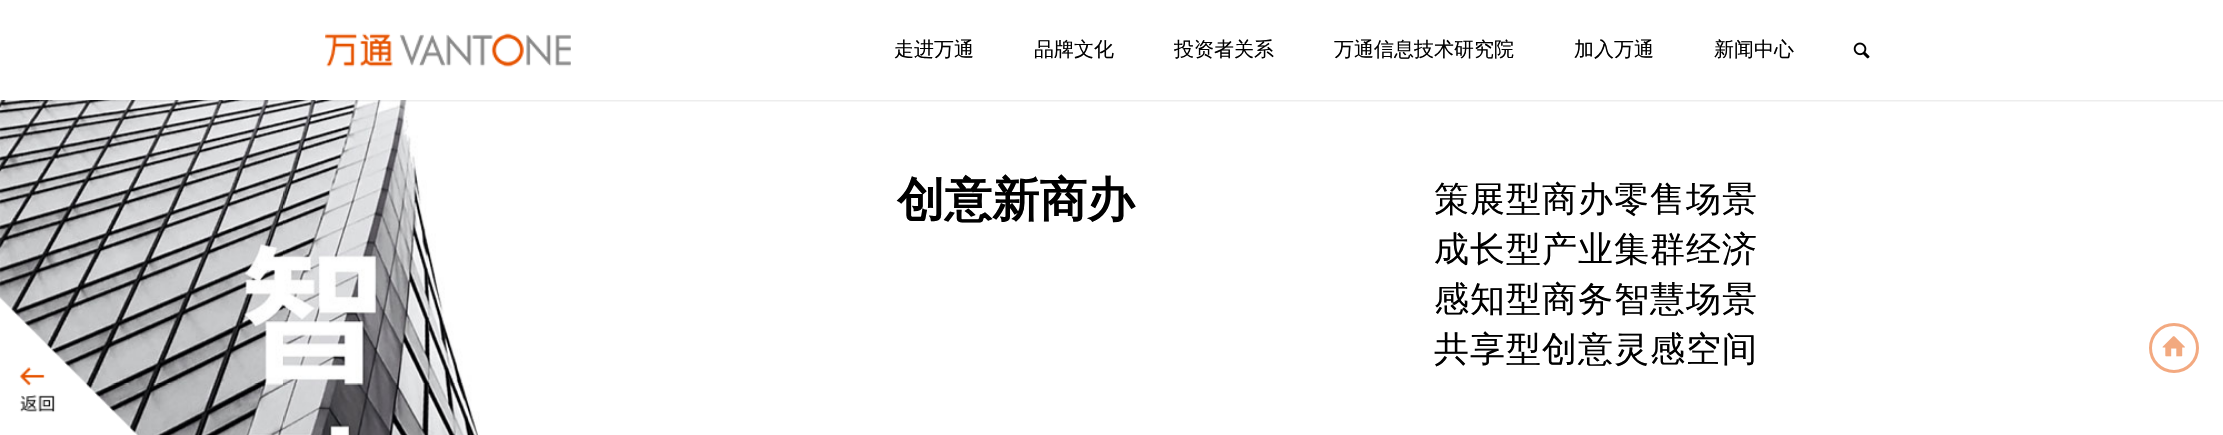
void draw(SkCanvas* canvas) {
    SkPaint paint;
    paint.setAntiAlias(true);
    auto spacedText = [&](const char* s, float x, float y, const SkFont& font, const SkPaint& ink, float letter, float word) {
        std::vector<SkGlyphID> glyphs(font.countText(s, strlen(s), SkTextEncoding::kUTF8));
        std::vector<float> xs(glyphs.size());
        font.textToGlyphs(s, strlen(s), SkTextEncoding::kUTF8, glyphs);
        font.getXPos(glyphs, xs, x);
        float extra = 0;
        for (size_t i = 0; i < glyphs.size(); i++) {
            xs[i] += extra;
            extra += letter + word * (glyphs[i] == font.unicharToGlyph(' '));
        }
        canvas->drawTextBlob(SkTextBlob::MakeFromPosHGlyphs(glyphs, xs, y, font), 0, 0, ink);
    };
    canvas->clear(0xFFFFFFFF);
    canvas->drawImageRect(SkImages::DeferredFromEncodedData(SkData::MakeFromFileName("img4.png")), SkRect::MakeXYWH(0, 100, 480, 335), SkSamplingOptions());
    canvas->save();
    canvas->clipRect(SkRect::MakeXYWH(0, 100, 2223, 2));
    paint.setColor(0x1A000000);
    paint.setMaskFilter(SkMaskFilter::MakeBlur(kNormal_SkBlurStyle, 1));
    canvas->drawRect(SkRect::MakeXYWH(-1, -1, 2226, 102), paint);
    paint.setMaskFilter(nullptr);
    canvas->restore();
    canvas->drawImageRect(SkImages::DeferredFromEncodedData(SkData::MakeFromFileName("img1.png")), SkRect::MakeXYWH(325, 33, 246, 34), SkSamplingOptions());
    SkFont font1(fontMgr->matchFamilyStyle("WenQuanYi Zen Hei", SkFontStyle(500, SkFontStyle::kNormal_Width, SkFontStyle::kUpright_Slant)), 20);
    font1.setSubpixel(true);
    paint.setColor(0xFF000000);
    canvas->drawString("走进万通", 894, 56, font1, paint);
    canvas->drawString("品牌文化", 1034, 56, font1, paint);
    canvas->drawString("投资者关系", 1174, 56, font1, paint);
    canvas->drawString("万通信息技术研究院", 1334, 56, font1, paint);
    canvas->drawString("加入万通", 1574, 56, font1, paint);
    canvas->drawString("新闻中心", 1714, 56, font1, paint);
    canvas->drawImageRect(SkImages::DeferredFromEncodedData(SkData::MakeFromFileName("img2.png")), SkRect::MakeXYWH(1853, 42, 17, 17), SkSamplingOptions());
    canvas->drawImageRect(SkImages::DeferredFromEncodedData(SkData::MakeFromFileName("img3.png")), SkRect::MakeXYWH(0, 297, 138, 138), SkSamplingOptions());
    SkFont font2(fontMgr->matchFamilyStyle("WenQuanYi Zen Hei", SkFontStyle::Bold()), 47.5f);
    font2.setSubpixel(true);
    canvas->drawString("创意新商办", 897, 216, font2, paint);
    SkFont font3(fontMgr->matchFamilyStyle("WenQuanYi Zen Hei", SkFontStyle(500, SkFontStyle::kNormal_Width, SkFontStyle::kUpright_Slant)), 35);
    font3.setSubpixel(true);
    spacedText("策展型商办零售场景", 1434, 211, font3, paint, 1, 0);
    spacedText("成长型产业集群经济", 1434, 261, font3, paint, 1, 0);
    spacedText("感知型商务智慧场景", 1434, 311, font3, paint, 1, 0);
    spacedText("共享型创意灵感空间", 1434, 361, font3, paint, 1, 0);
    paint.setStyle(SkPaint::kStroke_Style);
    paint.setStrokeWidth(3);
    paint.setColor(0xFFF3A980);
    canvas->drawCircle(2174, 348, 23.5f, paint);
    canvas->drawImageRect(SkImages::DeferredFromEncodedData(SkData::MakeFromFileName("img5.png")), SkRect::MakeXYWH(2162, 336, 23, 21), SkSamplingOptions());
}
